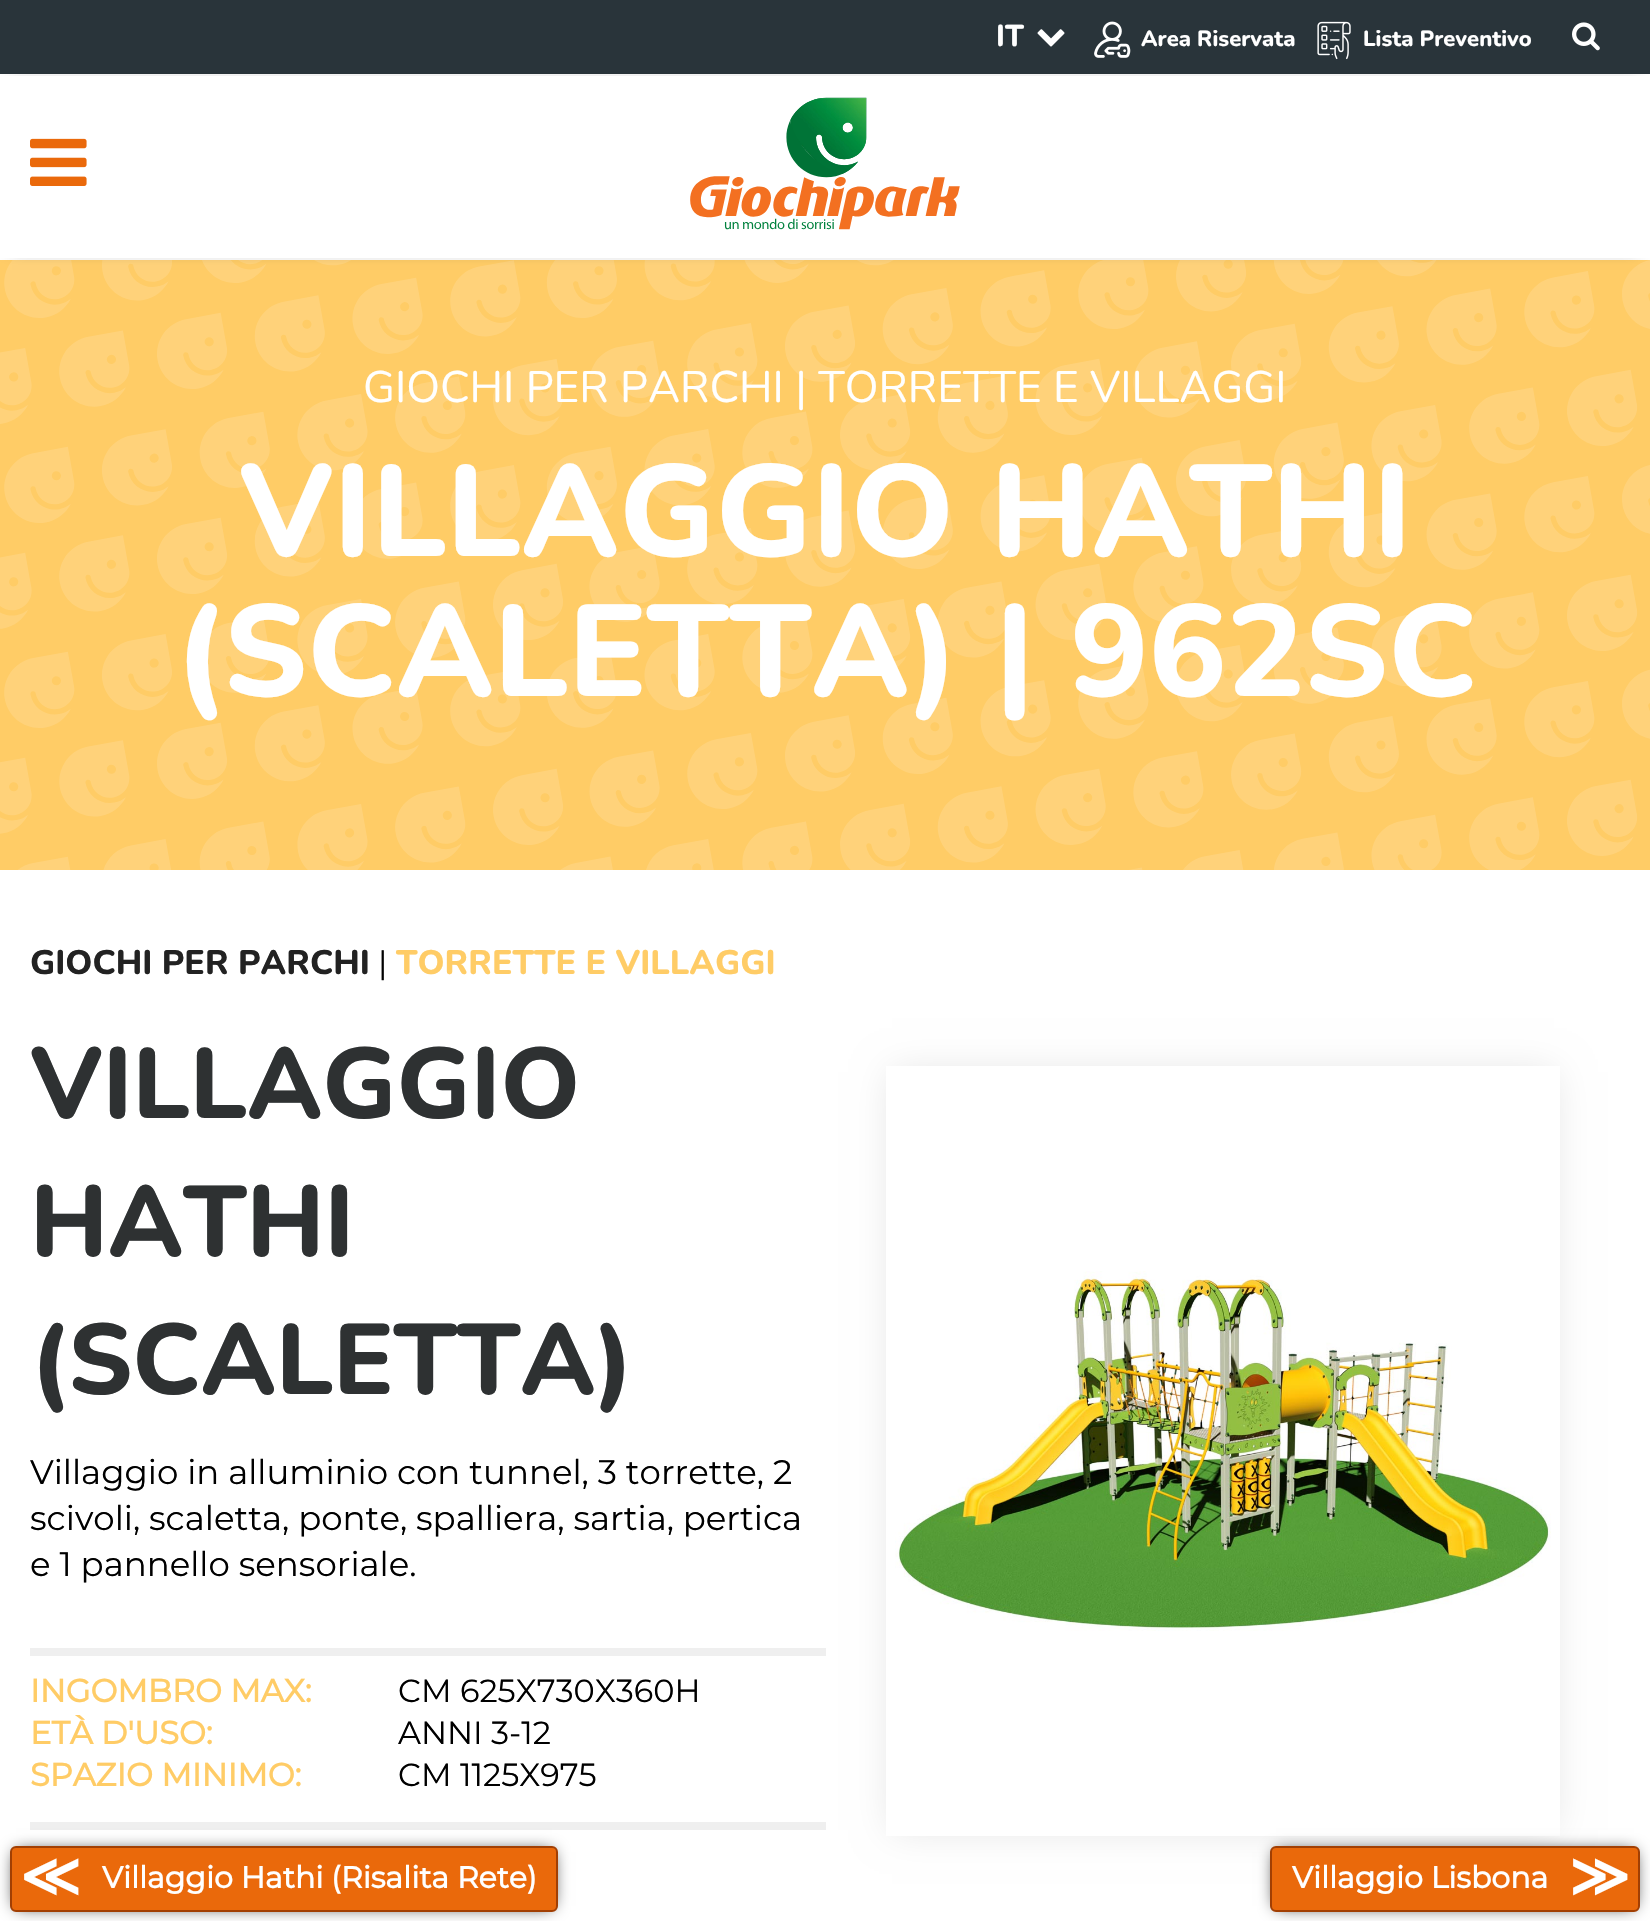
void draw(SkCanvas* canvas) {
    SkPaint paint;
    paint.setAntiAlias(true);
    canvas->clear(0xFFFFFFFF);
    paint.setColor(0xFF29343A);
    canvas->drawRect(SkRect::MakeXYWH(0, 0, 1650, 74), paint);
    SkFont font1(fontMgr->matchFamilyStyle("Nunito", SkFontStyle(800, SkFontStyle::kNormal_Width, SkFontStyle::kUpright_Slant)), 30);
    font1.setSubpixel(true);
    paint.setColor(0xFFFFFFFF);
    canvas->drawString("IT", 996, 46, font1, paint);
    canvas->drawImageRect(SkImages::DeferredFromEncodedData(SkData::MakeFromFileName("img1.png")), SkRect::MakeXYWH(1037, 29, 28, 18), SkSamplingOptions());
    canvas->drawImageRect(SkImages::DeferredFromEncodedData(SkData::MakeFromFileName("img2.png")), SkRect::MakeXYWH(1094, 21, 37, 37), SkSamplingOptions());
    SkFont font2(fontMgr->matchFamilyStyle("Nunito", SkFontStyle(800, SkFontStyle::kNormal_Width, SkFontStyle::kUpright_Slant)), 22);
    font2.setSubpixel(true);
    canvas->drawString("Area Riservata", 1141, 46, font2, paint);
    canvas->drawImageRect(SkImages::DeferredFromEncodedData(SkData::MakeFromFileName("img3.png")), SkRect::MakeXYWH(1317, 21, 34, 39), SkSamplingOptions());
    canvas->drawString("Lista Preventivo", 1363, 46, font2, paint);
    canvas->drawImageRect(SkImages::DeferredFromEncodedData(SkData::MakeFromFileName("img4.png")), SkRect::MakeXYWH(1572, 22, 28, 29), SkSamplingOptions());
    paint.setColor(0xFFFFCC66);
    canvas->drawRect(SkRect::MakeXYWH(0, 260, 1650, 610), paint);
    canvas->drawImageRect(SkImages::DeferredFromEncodedData(SkData::MakeFromFileName("img7.png")), SkRect::MakeXYWH(0, 260, 1650, 610), SkSamplingOptions());
    canvas->save();
    canvas->clipPath(SkPathBuilder(SkPathFillType::kEvenOdd).moveTo(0, 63).lineTo(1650, 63).lineTo(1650, 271).lineTo(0, 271).close().moveTo(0, 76).lineTo(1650, 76).lineTo(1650, 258).lineTo(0, 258).close().detach(), true);
    paint.setColor(0xFF222222);
    paint.setMaskFilter(SkMaskFilter::MakeBlur(kNormal_SkBlurStyle, 8));
    canvas->drawRect(SkRect::MakeXYWH(12, 88, 1626, 158), paint);
    paint.setMaskFilter(nullptr);
    canvas->restore();
    canvas->drawImageRect(SkImages::DeferredFromEncodedData(SkData::MakeFromFileName("img5.png")), SkRect::MakeXYWH(30, 138, 57, 48), SkSamplingOptions());
    canvas->drawImageRect(SkImages::DeferredFromEncodedData(SkData::MakeFromFileName("img6.png")), SkRect::MakeXYWH(690, 97, 270, 133), SkSamplingOptions());
    SkFont font3(fontMgr->matchFamilyStyle("Nunito", SkFontStyle::Normal()), 44);
    font3.setSubpixel(true);
    paint.setColor(0xFFFFFFFF);
    canvas->drawString("GIOCHI PER PARCHI | TORRETTE E VILLAGGI", 363, 402, font3, paint);
    SkFont font4(fontMgr->matchFamilyStyle("Nunito", SkFontStyle(800, SkFontStyle::kNormal_Width, SkFontStyle::kUpright_Slant)), 130);
    font4.setSubpixel(true);
    canvas->drawString("VILLAGGIO HATHI", 239, 556, font4, paint);
    canvas->drawString("(SCALETTA) | 962SC", 174, 696, font4, paint);
    SkFont font5(fontMgr->matchFamilyStyle("Nunito", SkFontStyle(800, SkFontStyle::kNormal_Width, SkFontStyle::kUpright_Slant)), 34);
    font5.setSubpixel(true);
    paint.setColor(0xFF222222);
    canvas->drawString("GIOCHI PER PARCHI", 30, 974, font5, paint);
    SkFont font6(fontMgr->matchFamilyStyle("Montserrat", SkFontStyle::Normal()), 32);
    font6.setSubpixel(true);
    paint.setColor(0xFF000000);
    canvas->drawString("|", 378, 974, font6, paint);
    paint.setColor(0xFFFFCC66);
    canvas->drawString("TORRETTE E VILLAGGI", 396, 974, font5, paint);
    SkFont font7(fontMgr->matchFamilyStyle("Nunito", SkFontStyle(800, SkFontStyle::kNormal_Width, SkFontStyle::kUpright_Slant)), 100);
    font7.setSubpixel(true);
    paint.setColor(0xFF2E3132);
    canvas->drawString("VILLAGGIO", 30, 1118, font7, paint);
    canvas->drawString("HATHI", 30, 1256, font7, paint);
    canvas->drawString("(SCALETTA)", 30, 1394, font7, paint);
    SkFont font8(fontMgr->matchFamilyStyle("Montserrat", SkFontStyle::Normal()), 34);
    font8.setSubpixel(true);
    paint.setColor(0xFF000000);
    canvas->drawString("Villaggio in alluminio con tunnel, 3 torrette, 2", 30, 1484, font8, paint);
    canvas->drawString("scivoli, scaletta, ponte, spalliera, sartia, pertica", 30, 1530, font8, paint);
    canvas->drawString("e 1 pannello sensoriale.", 30, 1576, font8, paint);
    paint.setColor(0xFFEFEFEF);
    canvas->drawRect(SkRect::MakeXYWH(30, 1648, 796, 8), paint);
    canvas->drawRect(SkRect::MakeXYWH(30, 1822, 796, 8), paint);
    SkFont font9(fontMgr->matchFamilyStyle("Montserrat", SkFontStyle::Bold()), 32);
    font9.setSubpixel(true);
    paint.setColor(0xFFFFCC66);
    canvas->drawString("INGOMBRO MAX:", 30, 1702, font9, paint);
    paint.setColor(0xFF000000);
    canvas->drawString("CM 625X730X360H", 398, 1702, font6, paint);
    paint.setColor(0xFFFFCC66);
    canvas->drawString("ETÀ D'USO:", 30, 1744, font9, paint);
    paint.setColor(0xFF000000);
    canvas->drawString("ANNI 3-12", 398, 1744, font6, paint);
    paint.setColor(0xFFFFCC66);
    canvas->drawString("SPAZIO MINIMO:", 30, 1786, font9, paint);
    paint.setColor(0xFF000000);
    canvas->drawString("CM 1125X975", 398, 1786, font6, paint);
    canvas->save();
    canvas->clipPath(SkPathBuilder(SkPathFillType::kEvenOdd).moveTo(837, 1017).lineTo(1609, 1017).lineTo(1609, 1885).lineTo(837, 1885).close().moveTo(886, 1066).lineTo(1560, 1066).lineTo(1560, 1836).lineTo(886, 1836).close().detach(), true);
    paint.setColor(0xFFE3E3E3);
    paint.setMaskFilter(SkMaskFilter::MakeBlur(kNormal_SkBlurStyle, 18));
    canvas->drawRect(SkRect::MakeXYWH(892, 1072, 662, 758), paint);
    paint.setMaskFilter(nullptr);
    canvas->restore();
    canvas->drawImageRect(SkImages::DeferredFromEncodedData(SkData::MakeFromFileName("img8.png")), SkRect::MakeXYWH(895, 1271, 656, 360), SkSamplingOptions());
    paint.setColor(0xFF000000);
    paint.setMaskFilter(SkMaskFilter::MakeBlur(kNormal_SkBlurStyle, 8));
    canvas->drawRect(SkRect::MakeXYWH(16, 1852, 536, 54), paint);
    paint.setMaskFilter(nullptr);
    paint.setColor(0xFFEA690B);
    canvas->drawRoundRect(SkRect::MakeXYWH(11, 1847, 546, 64), 5, 5, paint);
    paint.setStyle(SkPaint::kStroke_Style);
    paint.setStrokeWidth(2);
    paint.setColor(0xFFA23F03);
    canvas->drawRoundRect(SkRect::MakeXYWH(11, 1847, 546, 64), 5, 5, paint);
    SkFont font10(fontMgr->matchFamilyStyle("DejaVu Sans", SkFontStyle::Bold()), 58);
    font10.setSubpixel(true);
    paint.setStyle(SkPaint::kFill_Style);
    paint.setColor(0xFFFFFFFF);
    canvas->drawString("≪", 20, 1896, font10, paint);
    SkFont font11(fontMgr->matchFamilyStyle("Montserrat", SkFontStyle::Bold()), 30);
    font11.setSubpixel(true);
    canvas->drawString("Villaggio Hathi (Risalita Rete)", 102, 1888, font11, paint);
    paint.setColor(0xFF000000);
    paint.setMaskFilter(SkMaskFilter::MakeBlur(kNormal_SkBlurStyle, 8));
    canvas->drawRect(SkRect::MakeXYWH(1276, 1852, 358, 54), paint);
    paint.setMaskFilter(nullptr);
    paint.setColor(0xFFEA690B);
    canvas->drawRoundRect(SkRect::MakeXYWH(1271, 1847, 368, 64), 5, 5, paint);
    paint.setStyle(SkPaint::kStroke_Style);
    paint.setColor(0xFFA23F03);
    canvas->drawRoundRect(SkRect::MakeXYWH(1271, 1847, 368, 64), 5, 5, paint);
    paint.setStyle(SkPaint::kFill_Style);
    paint.setColor(0xFFFFFFFF);
    canvas->drawString("Villaggio Lisbona", 1292, 1888, font11, paint);
    canvas->drawString("≫", 1569, 1896, font10, paint);
}
